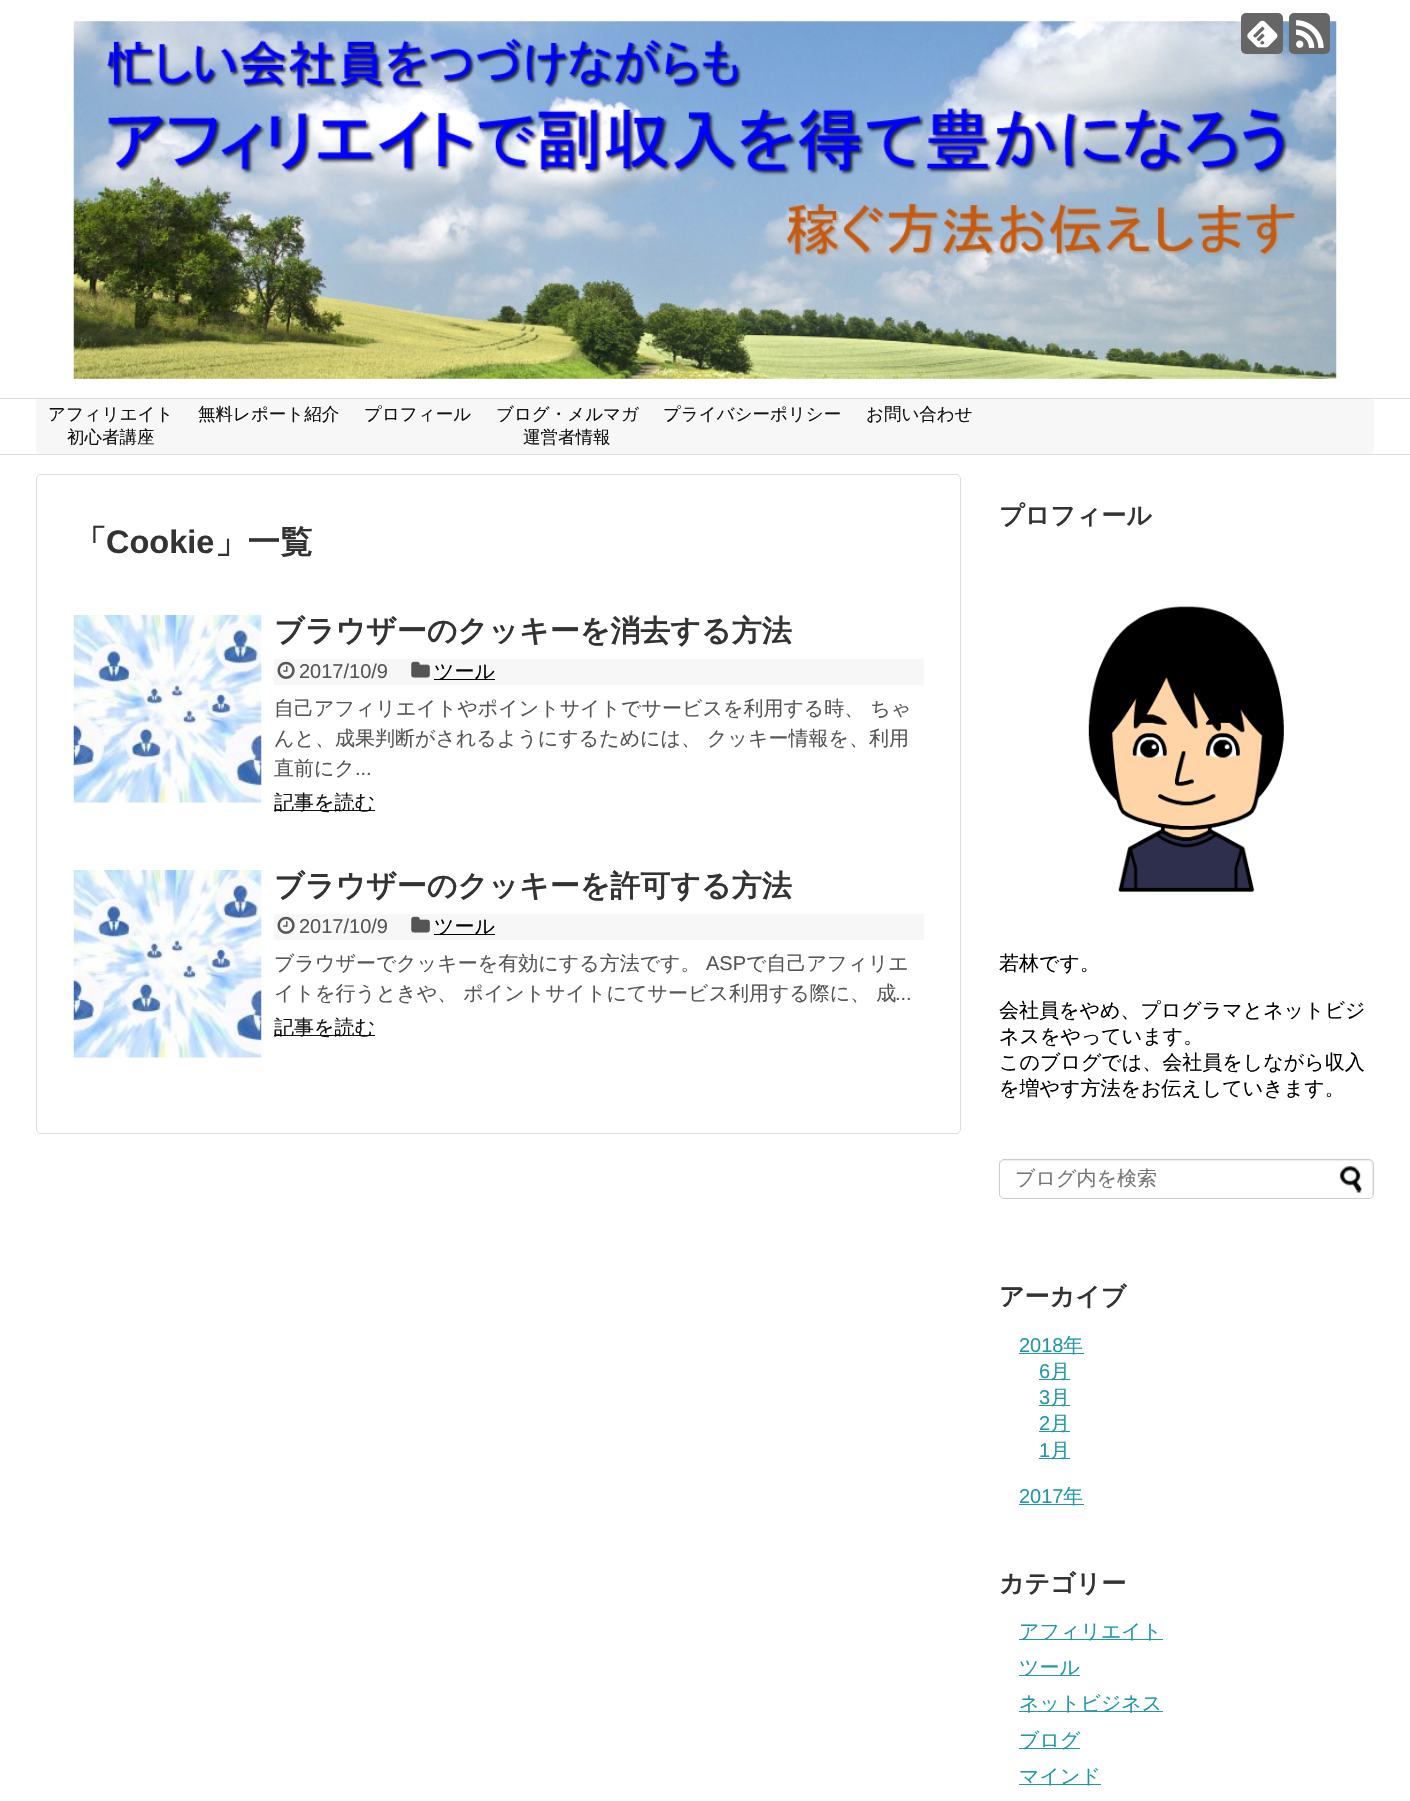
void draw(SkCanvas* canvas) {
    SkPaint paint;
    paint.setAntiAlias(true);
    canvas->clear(0xFFFFFFFF);
    canvas->drawImageRect(SkImages::DeferredFromEncodedData(SkData::MakeFromFileName("img3.png")), SkRect::MakeXYWH(73, 21, 1264, 358), SkSamplingOptions());
    paint.setColor(0xFF666666);
    canvas->drawRoundRect(SkRect::MakeXYWH(1241, 13, 42, 41), 5, 5, paint);
    canvas->drawImageRect(SkImages::DeferredFromEncodedData(SkData::MakeFromFileName("img1.png")), SkRect::MakeXYWH(1247, 20, 31, 28), SkSamplingOptions());
    canvas->drawRoundRect(SkRect::MakeXYWH(1289, 13, 41, 41), 5, 5, paint);
    canvas->drawImageRect(SkImages::DeferredFromEncodedData(SkData::MakeFromFileName("img2.png")), SkRect::MakeXYWH(1296, 20, 28, 28), SkSamplingOptions());
    paint.setColor(0xFFDDDDDD);
    canvas->drawRect(SkRect::MakeXYWH(0, 398, 1410, 1), paint);
    canvas->drawRect(SkRect::MakeXYWH(0, 454, 1410, 1), paint);
    paint.setColor(0xFFF7F7F7);
    canvas->drawRoundRect(SkRect::MakeXYWH(36, 399, 1338, 55), 4, 4, paint);
    SkFont font1(fontMgr->matchFamilyStyle("WenQuanYi Zen Hei", SkFontStyle(500, SkFontStyle::kNormal_Width, SkFontStyle::kUpright_Slant)), 17.5f);
    font1.setSubpixel(true);
    paint.setColor(0xFF111111);
    canvas->drawString("アフィリエイト", 48, 420, font1, paint);
    canvas->drawString("初心者講座", 67, 443, font1, paint);
    canvas->drawString("無料レポート紹介", 198, 420, font1, paint);
    canvas->drawString("プロフィール", 364, 420, font1, paint);
    canvas->drawString("ブログ・メルマガ", 496, 420, font1, paint);
    canvas->drawString("運営者情報", 523, 443, font1, paint);
    canvas->drawString("プライバシーポリシー", 663, 420, font1, paint);
    canvas->drawString("お問い合わせ", 866, 420, font1, paint);
    paint.setStyle(SkPaint::kStroke_Style);
    paint.setStrokeWidth(1);
    paint.setColor(0xFFDDDDDD);
    canvas->drawRoundRect(SkRect::MakeXYWH(36.5f, 474.5f, 924, 659), 4.5f, 4.5f, paint);
    SkFont font2(fontMgr->matchFamilyStyle("WenQuanYi Zen Hei", SkFontStyle::Bold()), 32.5f);
    font2.setSubpixel(true);
    paint.setStyle(SkPaint::kFill_Style);
    paint.setColor(0xFF333333);
    canvas->drawString("「", 74, 553, font2, paint);
    SkFont font3(fontMgr->matchFamilyStyle("Liberation Sans", SkFontStyle::Bold()), 32.5f);
    font3.setSubpixel(true);
    canvas->drawString("Cookie", 106, 553, font3, paint);
    canvas->drawString("」一覧", 215, 553, font2, paint);
    canvas->drawImageRect(SkImages::DeferredFromEncodedData(SkData::MakeFromFileName("img4.png")), SkRect::MakeXYWH(73, 615, 189, 188), SkSamplingOptions());
    SkFont font4(fontMgr->matchFamilyStyle("WenQuanYi Zen Hei", SkFontStyle::Bold()), 30);
    font4.setSubpixel(true);
    canvas->drawString("ブラウザーのクッキーを消去する方法", 274, 641, font4, paint);
    paint.setColor(0xFFF7F7F7);
    canvas->drawRect(SkRect::MakeXYWH(274, 659, 650, 26), paint);
    canvas->drawImageRect(SkImages::DeferredFromEncodedData(SkData::MakeFromFileName("img5.png")), SkRect::MakeXYWH(277, 661, 18, 18), SkSamplingOptions());
    SkFont font5(fontMgr->matchFamilyStyle("Liberation Sans", SkFontStyle::Normal()), 20);
    font5.setSubpixel(true);
    paint.setColor(0xFF555555);
    canvas->drawString("2017/10/9", 299, 678, font5, paint);
    canvas->drawImageRect(SkImages::DeferredFromEncodedData(SkData::MakeFromFileName("img6.png")), SkRect::MakeXYWH(411, 661, 19, 17), SkSamplingOptions());
    paint.setColor(0xFF000000);
    canvas->drawRect(SkRect::MakeXYWH(434, 679, 61, 1), paint);
    SkFont font6(fontMgr->matchFamilyStyle("WenQuanYi Zen Hei", SkFontStyle(500, SkFontStyle::kNormal_Width, SkFontStyle::kUpright_Slant)), 20);
    font6.setSubpixel(true);
    canvas->drawString("ツール", 434, 678, font6, paint);
    paint.setColor(0xFF555555);
    canvas->drawString("自己アフィリエイトやポイントサイトでサービスを利用する時、 ちゃ", 274, 715, font6, paint);
    canvas->drawString("んと、成果判断がされるようにするためには、 クッキー情報を、利用", 274, 745, font6, paint);
    canvas->drawString("直前にク", 274, 775, font6, paint);
    canvas->drawString("...", 355, 775, font5, paint);
    paint.setColor(0xFF111111);
    canvas->drawRect(SkRect::MakeXYWH(274, 810, 101, 1), paint);
    canvas->drawString("記事を読む", 274, 809, font6, paint);
    canvas->drawImageRect(SkImages::DeferredFromEncodedData(SkData::MakeFromFileName("img4.png")), SkRect::MakeXYWH(73, 870, 189, 188), SkSamplingOptions());
    paint.setColor(0xFF333333);
    canvas->drawString("ブラウザーのクッキーを許可する方法", 274, 896, font4, paint);
    paint.setColor(0xFFF7F7F7);
    canvas->drawRect(SkRect::MakeXYWH(274, 914, 650, 26), paint);
    canvas->drawImageRect(SkImages::DeferredFromEncodedData(SkData::MakeFromFileName("img5.png")), SkRect::MakeXYWH(277, 916, 18, 18), SkSamplingOptions());
    paint.setColor(0xFF555555);
    canvas->drawString("2017/10/9", 299, 933, font5, paint);
    canvas->drawImageRect(SkImages::DeferredFromEncodedData(SkData::MakeFromFileName("img6.png")), SkRect::MakeXYWH(411, 916, 19, 17), SkSamplingOptions());
    paint.setColor(0xFF000000);
    canvas->drawRect(SkRect::MakeXYWH(434, 934, 61, 1), paint);
    canvas->drawString("ツール", 434, 933, font6, paint);
    paint.setColor(0xFF555555);
    canvas->drawString("ブラウザーでクッキーを有効にする方法です。", 274, 970, font6, paint);
    canvas->drawString("ASP", 706, 970, font5, paint);
    canvas->drawString("で自己アフィリエ", 746, 970, font6, paint);
    canvas->drawString("イトを行うときや、 ポイントサイトにてサービス利用する際に、 成", 274, 1000, font6, paint);
    canvas->drawString("...", 895, 1000, font5, paint);
    paint.setColor(0xFF111111);
    canvas->drawRect(SkRect::MakeXYWH(274, 1035, 101, 1), paint);
    canvas->drawString("記事を読む", 274, 1034, font6, paint);
    SkFont font7(fontMgr->matchFamilyStyle("WenQuanYi Zen Hei", SkFontStyle::Bold()), 25);
    font7.setSubpixel(true);
    paint.setColor(0xFF333333);
    canvas->drawString("プロフィール", 999, 524, font7, paint);
    canvas->drawImageRect(SkImages::DeferredFromEncodedData(SkData::MakeFromFileName("img7.png")), SkRect::MakeXYWH(1088, 606, 196, 286), SkSamplingOptions());
    paint.setColor(0xFF000000);
    canvas->drawString("若林です。", 999, 970, font6, paint);
    canvas->drawString("会社員をやめ、プログラマとネットビジ", 999, 1017, font6, paint);
    canvas->drawString("ネスをやっています。", 999, 1043, font6, paint);
    canvas->drawString("このブログでは、会社員をしながら収入", 999, 1069, font6, paint);
    canvas->drawString("を増やす方法をお伝えしていきます。", 999, 1095, font6, paint);
    paint.setColor(0xFFECECEC);
    canvas->drawPath(SkPathBuilder().moveTo(1004, 1161).lineTo(1369, 1161).cubicTo(1374, 1161, 1372, 1173, 1372, 1175).lineTo(1372, 1197).cubicTo(1372, 1196, 1373, 1195, 1373, 1194).lineTo(1373, 1164).cubicTo(1373, 1162, 1371, 1160, 1369, 1160).lineTo(1004, 1160).cubicTo(1002, 1160, 1000, 1162, 1000, 1164).lineTo(1000, 1165).cubicTo(1000, 1163, 1002, 1161, 1004, 1161).close().detach(), paint);
    paint.setStyle(SkPaint::kStroke_Style);
    paint.setColor(0xFFCCCCCC);
    canvas->drawRoundRect(SkRect::MakeXYWH(999.5f, 1159.5f, 374, 39), 4.5f, 4.5f, paint);
    paint.setStyle(SkPaint::kFill_Style);
    paint.setColor(0xFF757575);
    canvas->drawString("ブログ内を検索", 1015, 1185, font6, paint);
    canvas->drawImageRect(SkImages::DeferredFromEncodedData(SkData::MakeFromFileName("img8.png")), SkRect::MakeXYWH(1339, 1166, 23, 27), SkSamplingOptions());
    paint.setColor(0xFF333333);
    canvas->drawString("アーカイブ", 999, 1305, font7, paint);
    paint.setColor(0xFF2098A8);
    canvas->drawString("2018", 1019, 1352, font5, paint);
    canvas->drawRect(SkRect::MakeXYWH(1019, 1353, 65, 1), paint);
    canvas->drawString("年", 1063, 1352, font6, paint);
    canvas->drawString("6", 1039, 1378, font5, paint);
    canvas->drawRect(SkRect::MakeXYWH(1039, 1379, 31, 1), paint);
    canvas->drawString("月", 1050, 1378, font6, paint);
    canvas->drawString("3", 1039, 1404, font5, paint);
    canvas->drawRect(SkRect::MakeXYWH(1039, 1405, 31, 1), paint);
    canvas->drawString("月", 1050, 1404, font6, paint);
    canvas->drawString("2", 1039, 1430, font5, paint);
    canvas->drawRect(SkRect::MakeXYWH(1039, 1431, 31, 1), paint);
    canvas->drawString("月", 1050, 1430, font6, paint);
    canvas->drawString("1", 1039, 1457, font5, paint);
    canvas->drawRect(SkRect::MakeXYWH(1039, 1458, 31, 1), paint);
    canvas->drawString("月", 1050, 1457, font6, paint);
    canvas->drawString("2017", 1019, 1503, font5, paint);
    canvas->drawRect(SkRect::MakeXYWH(1019, 1504, 65, 1), paint);
    canvas->drawString("年", 1063, 1503, font6, paint);
    paint.setColor(0xFF333333);
    canvas->drawString("カテゴリー", 999, 1592, font7, paint);
    paint.setColor(0xFF2098A8);
    canvas->drawRect(SkRect::MakeXYWH(1019, 1639, 144, 1), paint);
    canvas->drawString("アフィリエイト", 1019, 1638, font6, paint);
    canvas->drawRect(SkRect::MakeXYWH(1019, 1675, 61, 1), paint);
    canvas->drawString("ツール", 1019, 1674, font6, paint);
    canvas->drawRect(SkRect::MakeXYWH(1019, 1711, 144, 1), paint);
    canvas->drawString("ネットビジネス", 1019, 1710, font6, paint);
    canvas->drawRect(SkRect::MakeXYWH(1019, 1748, 61, 1), paint);
    canvas->drawString("ブログ", 1019, 1747, font6, paint);
    canvas->drawRect(SkRect::MakeXYWH(1019, 1784, 82, 1), paint);
    canvas->drawString("マインド", 1019, 1783, font6, paint);
}
